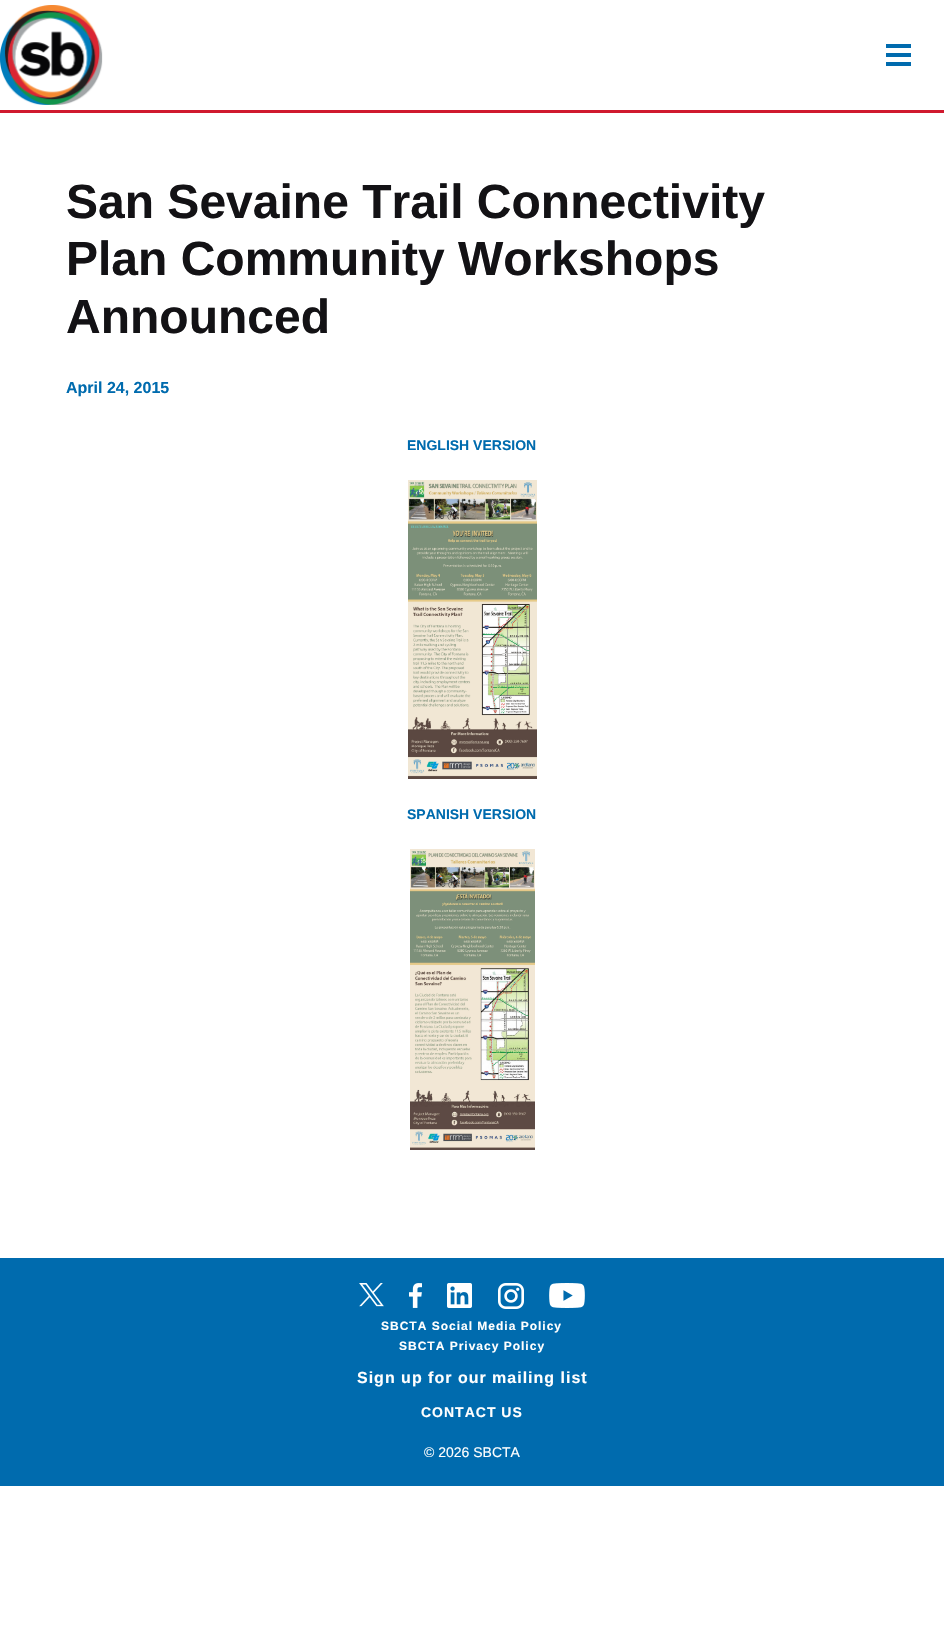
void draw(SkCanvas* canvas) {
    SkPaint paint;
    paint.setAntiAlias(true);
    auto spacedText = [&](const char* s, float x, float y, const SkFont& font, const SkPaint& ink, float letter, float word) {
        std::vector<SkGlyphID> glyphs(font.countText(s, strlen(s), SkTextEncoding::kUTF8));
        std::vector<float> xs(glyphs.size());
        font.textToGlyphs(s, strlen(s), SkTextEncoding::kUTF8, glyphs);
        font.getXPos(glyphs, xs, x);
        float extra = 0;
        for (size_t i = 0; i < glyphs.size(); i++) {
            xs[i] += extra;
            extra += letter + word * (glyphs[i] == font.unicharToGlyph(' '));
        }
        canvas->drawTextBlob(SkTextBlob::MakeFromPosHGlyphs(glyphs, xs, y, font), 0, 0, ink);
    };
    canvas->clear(0xFFFFFFFF);
    paint.setColor(0xFFD0192E);
    canvas->drawRect(SkRect::MakeXYWH(0, 110, 944, 3), paint);
    canvas->drawImageRect(SkImages::DeferredFromEncodedData(SkData::MakeFromFileName("img1.png")), SkRect::MakeXYWH(0, 5, 103, 100), SkSamplingOptions());
    paint.setColor(0xFF006BAE);
    canvas->drawRect(SkRect::MakeXYWH(886, 44, 25, 4), paint);
    canvas->drawRect(SkRect::MakeXYWH(886, 53, 25, 4), paint);
    canvas->drawRect(SkRect::MakeXYWH(886, 62, 25, 4), paint);
    SkFont font1(fontMgr->matchFamilyStyle("Liberation Sans", SkFontStyle::Bold()), 48);
    font1.setSubpixel(true);
    paint.setColor(0xFF131215);
    canvas->drawString("San Sevaine Trail Connectivity", 66, 218, font1, paint);
    canvas->drawString("Plan Community Workshops", 66, 275, font1, paint);
    canvas->drawString("Announced", 66, 333, font1, paint);
    SkFont font2(fontMgr->matchFamilyStyle("Liberation Sans", SkFontStyle::Bold()), 16);
    font2.setSubpixel(true);
    paint.setColor(0xFF006BAE);
    canvas->drawString("April 24, 2015", 66, 393, font2, paint);
    SkFont font3(fontMgr->matchFamilyStyle("Liberation Sans", SkFontStyle::Bold()), 14);
    font3.setSubpixel(true);
    canvas->drawString("ENGLISH VERSION", 407, 450, font3, paint);
    canvas->drawImageRect(SkImages::DeferredFromEncodedData(SkData::MakeFromFileName("img2.png")), SkRect::MakeXYWH(408, 480, 129, 299), SkSamplingOptions());
    canvas->drawString("SPANISH VERSION", 407, 819, font3, paint);
    canvas->drawImageRect(SkImages::DeferredFromEncodedData(SkData::MakeFromFileName("img3.png")), SkRect::MakeXYWH(410, 849, 125, 301), SkSamplingOptions());
    canvas->drawRect(SkRect::MakeXYWH(0, 1258, 944, 228), paint);
    canvas->drawImageRect(SkImages::DeferredFromEncodedData(SkData::MakeFromFileName("img4.png")), SkRect::MakeXYWH(359, 1283, 25, 24), SkSamplingOptions());
    canvas->drawImageRect(SkImages::DeferredFromEncodedData(SkData::MakeFromFileName("img5.png")), SkRect::MakeXYWH(409, 1283, 13, 25), SkSamplingOptions());
    canvas->drawImageRect(SkImages::DeferredFromEncodedData(SkData::MakeFromFileName("img6.png")), SkRect::MakeXYWH(447, 1283, 25, 25), SkSamplingOptions());
    canvas->drawImageRect(SkImages::DeferredFromEncodedData(SkData::MakeFromFileName("img7.png")), SkRect::MakeXYWH(498, 1283, 26, 26), SkSamplingOptions());
    canvas->drawImageRect(SkImages::DeferredFromEncodedData(SkData::MakeFromFileName("img8.png")), SkRect::MakeXYWH(549, 1283, 36, 25), SkSamplingOptions());
    SkFont font4(fontMgr->matchFamilyStyle("Liberation Sans", SkFontStyle::Bold()), 12);
    font4.setSubpixel(true);
    paint.setColor(0xFFFFFFFF);
    spacedText("SBCTA Social Media Policy", 381, 1330, font4, paint, 1, 0);
    spacedText("SBCTA Privacy Policy", 399, 1350, font4, paint, 1, 0);
    spacedText("Sign up for our mailing list", 357, 1383, font2, paint, 1, 0);
    spacedText("CONTACT US", 421, 1417, font3, paint, 1, 0);
    SkFont font5(fontMgr->matchFamilyStyle("Liberation Sans", SkFontStyle::Normal()), 14);
    font5.setSubpixel(true);
    canvas->drawString("© 2026 SBCTA", 424, 1457, font5, paint);
}
